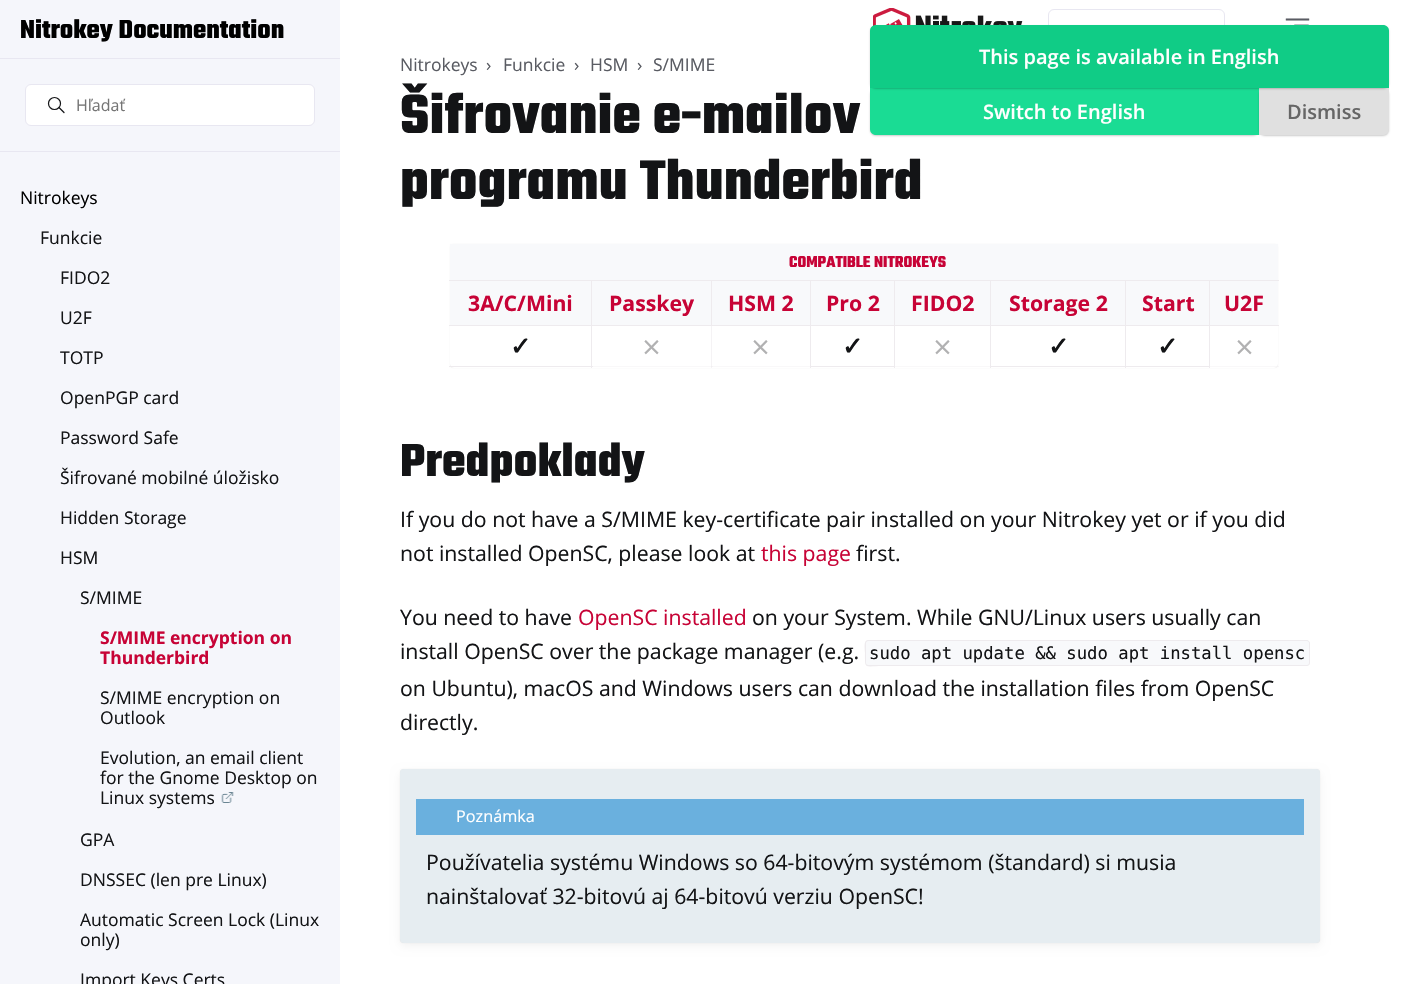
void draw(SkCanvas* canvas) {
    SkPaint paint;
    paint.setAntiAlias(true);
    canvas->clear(0xFFFFFFFF);
    paint.setColor(0xFFF9F8F9);
    canvas->drawRect(SkRect::MakeXYWH(711, 366, 100, 1), paint);
    canvas->drawRect(SkRect::MakeXYWH(894, 366, 97, 1), paint);
    paint.setColor(0xFFF5F6FB);
    canvas->drawRect(SkRect::MakeXYWH(0, 0, 340, 984), paint);
    paint.setColor(0xFFE8E7F1);
    canvas->drawRect(SkRect::MakeXYWH(0, 58, 340, 1), paint);
    SkFont font1(fontMgr->matchFamilyStyle("Teko", SkFontStyle(300, SkFontStyle::kNormal_Width, SkFontStyle::kUpright_Slant)), 28);
    font1.setSubpixel(true);
    paint.setColor(0xFF000000);
    canvas->drawString("Nitrokey Documentation", 20, 38, font1, paint);
    paint.setColor(0xFFFFFFFF);
    canvas->drawRoundRect(SkRect::MakeXYWH(25.5f, 84.5f, 289, 41), 5.5f, 5.5f, paint);
    paint.setStyle(SkPaint::kStroke_Style);
    paint.setStrokeWidth(1);
    paint.setColor(0xFFE8E7F1);
    canvas->drawRoundRect(SkRect::MakeXYWH(25.5f, 84.5f, 289, 41), 5.5f, 5.5f, paint);
    paint.setStrokeWidth(1.2f);
    paint.setColor(0xFF131416);
    canvas->drawCircle(54.5f, 103.5f, 6, paint);
    paint.setStrokeCap(SkPaint::kRound_Cap);
    paint.setStrokeJoin(SkPaint::kRound_Join);
    canvas->drawPath(SkPathBuilder().moveTo(64, 112.5f).lineTo(59, 107.5f).detach(), paint);
    SkFont font2(fontMgr->matchFamilyStyle("Open Sans", SkFontStyle::Normal()), 16);
    font2.setSubpixel(true);
    paint.setStyle(SkPaint::kFill_Style);
    paint.setColor(0xFF757575);
    canvas->drawString("Hľadať", 76, 111, font2, paint);
    paint.setColor(0xFFE8E7F1);
    canvas->drawRect(SkRect::MakeXYWH(0, 151, 340, 1), paint);
    SkFont font3(fontMgr->matchFamilyStyle("Open Sans", SkFontStyle::Normal()), 17.5f);
    font3.setSubpixel(true);
    paint.setColor(0xFF000000);
    canvas->drawString("Nitrokeys", 20, 204, font3, paint);
    paint.setColor(0xFF131416);
    canvas->drawString("Funkcie", 40, 244, font3, paint);
    canvas->drawString("FIDO2", 60, 284, font3, paint);
    canvas->drawString("U2F", 60, 324, font3, paint);
    canvas->drawString("TOTP", 60, 364, font3, paint);
    canvas->drawString("OpenPGP card", 60, 404, font3, paint);
    canvas->drawString("Password Safe", 60, 444, font3, paint);
    canvas->drawString("Šifrované mobilné úložisko", 60, 484, font3, paint);
    canvas->drawString("Hidden Storage", 60, 524, font3, paint);
    canvas->drawString("HSM", 60, 564, font3, paint);
    canvas->drawString("S/MIME", 80, 604, font3, paint);
    SkFont font4(fontMgr->matchFamilyStyle("Open Sans", SkFontStyle::Bold()), 17.5f);
    font4.setSubpixel(true);
    paint.setColor(0xFFC70336);
    canvas->drawString("S/MIME encryption on", 100, 644, font4, paint);
    canvas->drawString("Thunderbird", 100, 664, font4, paint);
    paint.setColor(0xFF131416);
    canvas->drawString("S/MIME encryption on", 100, 704, font3, paint);
    canvas->drawString("Outlook", 100, 724, font3, paint);
    canvas->drawString("Evolution, an email client", 100, 764, font3, paint);
    canvas->drawString("for the Gnome Desktop on", 100, 784, font3, paint);
    canvas->drawString("Linux systems", 100, 804, font3, paint);
    canvas->drawImageRect(SkImages::DeferredFromEncodedData(SkData::MakeFromFileName("img1.png")), SkRect::MakeXYWH(221, 792, 13, 11), SkSamplingOptions());
    canvas->drawString("GPA", 80, 846, font3, paint);
    canvas->drawString("DNSSEC (len pre Linux)", 80, 886, font3, paint);
    canvas->drawString("Automatic Screen Lock (Linux", 80, 926, font3, paint);
    canvas->drawString("only)", 80, 946, font3, paint);
    canvas->drawString("Import Keys Certs", 80, 986, font3, paint);
    canvas->drawImageRect(SkImages::DeferredFromEncodedData(SkData::MakeFromFileName("img2.png")), SkRect::MakeXYWH(873, 8, 150, 18), SkSamplingOptions());
    paint.setStyle(SkPaint::kStroke_Style);
    paint.setStrokeWidth(1);
    paint.setStrokeCap(SkPaint::kButt_Cap);
    paint.setStrokeJoin(SkPaint::kMiter_Join);
    paint.setColor(0xFFE8E7F1);
    canvas->drawRoundRect(SkRect::MakeXYWH(1048.5f, 9.5f, 176, 40), 5.5f, 5.5f, paint);
    canvas->drawImageRect(SkImages::DeferredFromEncodedData(SkData::MakeFromFileName("img3.png")), SkRect::MakeXYWH(1285, 18, 25, 7), SkSamplingOptions());
    paint.setStyle(SkPaint::kFill_Style);
    paint.setColor(0x33000000);
    paint.setMaskFilter(SkMaskFilter::MakeBlur(kNormal_SkBlurStyle, 1));
    canvas->drawRoundRect(SkRect::MakeXYWH(870, 89, 389, 47), 6, 6, paint);
    paint.setMaskFilter(nullptr);
    paint.setColor(0xFF1ADC94);
    canvas->drawPath(SkPathBuilder().moveTo(870, 88).lineTo(1259, 88).lineTo(1259, 135).lineTo(876, 135).cubicTo(872.5f, 135, 870, 132.5f, 870, 129).close().detach(), paint);
    paint.setColor(0x33000000);
    paint.setMaskFilter(SkMaskFilter::MakeBlur(kNormal_SkBlurStyle, 1));
    canvas->drawRoundRect(SkRect::MakeXYWH(1259, 89, 130, 47), 6, 6, paint);
    paint.setMaskFilter(nullptr);
    paint.setColor(0xFFE0E0E0);
    canvas->drawPath(SkPathBuilder().moveTo(1259, 88).lineTo(1389, 88).lineTo(1389, 129).cubicTo(1389, 132.5f, 1386.5f, 135, 1383, 135).lineTo(1259, 135).close().detach(), paint);
    paint.setColor(0x33000000);
    paint.setMaskFilter(SkMaskFilter::MakeBlur(kNormal_SkBlurStyle, 1));
    canvas->drawRoundRect(SkRect::MakeXYWH(870, 26, 519, 63), 6, 6, paint);
    paint.setMaskFilter(nullptr);
    paint.setColor(0xFF10CC86);
    canvas->drawPath(SkPathBuilder().moveTo(876, 25).lineTo(1383, 25).cubicTo(1386.5f, 25, 1389, 27.5f, 1389, 31).lineTo(1389, 88).lineTo(870, 88).lineTo(870, 31).cubicTo(870, 27.5f, 872.5f, 25, 876, 25).close().detach(), paint);
    SkFont font5(fontMgr->matchFamilyStyle("Open Sans", SkFontStyle(600, SkFontStyle::kNormal_Width, SkFontStyle::kUpright_Slant)), 20);
    font5.setSubpixel(true);
    paint.setColor(0xFFFFFFFF);
    canvas->drawString("This page is available in English", 979, 64, font5, paint);
    canvas->drawString("Switch to English", 983, 119, font5, paint);
    paint.setColor(0xFF666666);
    canvas->drawString("Dismiss", 1287, 119, font5, paint);
    paint.setColor(0xFF5A5C63);
    canvas->drawString("Nitrokeys", 400, 71, font3, paint);
    canvas->drawString("›", 486, 71, font3, paint);
    canvas->drawString("Funkcie", 503, 71, font3, paint);
    canvas->drawString("›", 574, 71, font3, paint);
    canvas->drawString("HSM", 590, 71, font3, paint);
    canvas->drawString("›", 637, 71, font3, paint);
    canvas->drawString("S/MIME", 653, 71, font3, paint);
    SkFont font6(fontMgr->matchFamilyStyle("Teko", SkFontStyle(300, SkFontStyle::kNormal_Width, SkFontStyle::kUpright_Slant)), 60);
    font6.setSubpixel(true);
    paint.setColor(0xFF131416);
    canvas->drawString("Šifrovanie e-mailov", 400, 133, font6, paint);
    canvas->drawString("programu Thunderbird", 400, 199, font6, paint);
    canvas->save();
    canvas->clipPath(SkPathBuilder(SkPathFillType::kEvenOdd).moveTo(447, 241).lineTo(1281, 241).lineTo(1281, 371).lineTo(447, 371).close().moveTo(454, 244).lineTo(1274, 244).cubicTo(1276, 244, 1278, 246, 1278, 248).lineTo(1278, 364).cubicTo(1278, 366, 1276, 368, 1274, 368).lineTo(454, 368).cubicTo(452, 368, 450, 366, 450, 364).lineTo(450, 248).cubicTo(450, 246, 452, 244, 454, 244).close().detach(), true);
    paint.setColor(0x1A000000);
    paint.setMaskFilter(SkMaskFilter::MakeBlur(kNormal_SkBlurStyle, 0.5f));
    canvas->drawRoundRect(SkRect::MakeXYWH(450, 244, 828, 124), 4, 4, paint);
    paint.setMaskFilter(nullptr);
    canvas->restore();
    paint.setColor(0xFFF8F9FB);
    canvas->drawRect(SkRect::MakeXYWH(450, 244, 828, 36), paint);
    paint.setColor(0x54EEEBEE);
    canvas->drawRect(SkRect::MakeXYWH(1209, 366, 70, 1), paint);
    paint.setColor(0xFFEEEBEE);
    canvas->drawRect(SkRect::MakeXYWH(1209, 325, 1, 43), paint);
    canvas->drawRect(SkRect::MakeXYWH(1209, 325, 70, 1), paint);
    canvas->drawRect(SkRect::MakeXYWH(1209, 280, 1, 46), paint);
    canvas->drawRect(SkRect::MakeXYWH(1125, 366, 85, 1), paint);
    canvas->drawRect(SkRect::MakeXYWH(1125, 325, 1, 43), paint);
    canvas->drawRect(SkRect::MakeXYWH(1125, 325, 85, 1), paint);
    canvas->drawRect(SkRect::MakeXYWH(1125, 280, 1, 46), paint);
    canvas->drawRect(SkRect::MakeXYWH(990, 366, 136, 1), paint);
    canvas->drawRect(SkRect::MakeXYWH(990, 325, 1, 43), paint);
    canvas->drawRect(SkRect::MakeXYWH(990, 325, 136, 1), paint);
    canvas->drawRect(SkRect::MakeXYWH(990, 280, 1, 46), paint);
    canvas->drawRect(SkRect::MakeXYWH(894, 325, 1, 43), paint);
    canvas->drawRect(SkRect::MakeXYWH(894, 325, 97, 1), paint);
    canvas->drawRect(SkRect::MakeXYWH(894, 280, 1, 46), paint);
    canvas->drawRect(SkRect::MakeXYWH(810, 366, 85, 1), paint);
    canvas->drawRect(SkRect::MakeXYWH(810, 325, 1, 43), paint);
    canvas->drawRect(SkRect::MakeXYWH(810, 325, 85, 1), paint);
    canvas->drawRect(SkRect::MakeXYWH(810, 280, 1, 46), paint);
    paint.setColor(0x54EEEBEE);
    canvas->drawRect(SkRect::MakeXYWH(711, 325, 1, 43), paint);
    canvas->drawRect(SkRect::MakeXYWH(711, 325, 1, 43), paint);
    paint.setColor(0xFFEEEBEE);
    canvas->drawRect(SkRect::MakeXYWH(711, 325, 100, 1), paint);
    paint.setColor(0xFFF8F9FB);
    canvas->drawRect(SkRect::MakeXYWH(592, 281, 218, 44), paint);
    paint.setColor(0xFFEEEBEE);
    canvas->drawRect(SkRect::MakeXYWH(711, 280, 1, 46), paint);
    paint.setColor(0x54EEEBEE);
    canvas->drawRect(SkRect::MakeXYWH(591, 366, 122, 1), paint);
    paint.setColor(0xFFEEEBEE);
    canvas->drawRect(SkRect::MakeXYWH(591, 325, 1, 43), paint);
    canvas->drawRect(SkRect::MakeXYWH(591, 325, 122, 1), paint);
    canvas->drawRect(SkRect::MakeXYWH(591, 280, 1, 46), paint);
    canvas->drawRect(SkRect::MakeXYWH(449, 280, 830, 1), paint);
    SkFont font7(fontMgr->matchFamilyStyle("Teko", SkFontStyle(300, SkFontStyle::kNormal_Width, SkFontStyle::kUpright_Slant)), 17);
    font7.setSubpixel(true);
    paint.setColor(0xFFC70336);
    canvas->drawString("COMPATIBLE", 789, 267, font7, paint);
    canvas->drawString("NITROKEYS", 874, 267, font7, paint);
    paint.setColor(0xFFF8F9FB);
    canvas->drawRect(SkRect::MakeXYWH(450, 281, 141, 44), paint);
    paint.setColor(0xFFEEEBEE);
    canvas->drawRect(SkRect::MakeXYWH(449, 325, 144, 1), paint);
    SkFont font8(fontMgr->matchFamilyStyle("Open Sans", SkFontStyle::Bold()), 21.25f);
    font8.setSubpixel(true);
    paint.setColor(0xFFC70336);
    canvas->drawString("3A/C/Mini", 468, 311, font8, paint);
    canvas->drawString("Passkey", 609, 311, font8, paint);
    canvas->drawString("HSM 2", 728, 311, font8, paint);
    paint.setColor(0xFFF8F9FB);
    canvas->drawRect(SkRect::MakeXYWH(811, 281, 83, 44), paint);
    paint.setColor(0xFFC70336);
    canvas->drawString("Pro 2", 826, 311, font8, paint);
    paint.setColor(0xFFF8F9FB);
    canvas->drawRect(SkRect::MakeXYWH(895, 281, 95, 44), paint);
    paint.setColor(0xFFC70336);
    canvas->drawString("FIDO2", 911, 311, font8, paint);
    paint.setColor(0xFFF8F9FB);
    canvas->drawRect(SkRect::MakeXYWH(991, 281, 134, 44), paint);
    paint.setColor(0xFFC70336);
    canvas->drawString("Storage 2", 1009, 311, font8, paint);
    paint.setColor(0xFFF8F9FB);
    canvas->drawRect(SkRect::MakeXYWH(1126, 281, 83, 44), paint);
    paint.setColor(0xFFC70336);
    canvas->drawString("Start", 1142, 311, font8, paint);
    paint.setColor(0xFFF8F9FB);
    canvas->drawRect(SkRect::MakeXYWH(1210, 281, 68, 44), paint);
    paint.setColor(0xFFC70336);
    canvas->drawString("U2F", 1224, 311, font8, paint);
    paint.setColor(0xFFEEEBEE);
    canvas->drawRect(SkRect::MakeXYWH(449, 366, 144, 1), paint);
    SkFont font9(fontMgr->matchFamilyStyle("DejaVu Sans", SkFontStyle::Bold()), 25);
    font9.setSubpixel(true);
    paint.setColor(0xFF131416);
    canvas->drawString("✓", 510, 355, font9, paint);
    SkFont font10(fontMgr->matchFamilyStyle("DejaVu Sans", SkFontStyle::Normal()), 25);
    font10.setSubpixel(true);
    paint.setColor(0xFFB1B1B2);
    canvas->drawString("⨯", 641, 355, font10, paint);
    canvas->drawString("⨯", 750, 355, font10, paint);
    paint.setColor(0xFF131416);
    canvas->drawString("✓", 842, 355, font9, paint);
    paint.setColor(0xFFB1B1B2);
    canvas->drawString("⨯", 932, 355, font10, paint);
    paint.setColor(0xFF131416);
    canvas->drawString("✓", 1048, 355, font9, paint);
    canvas->drawString("✓", 1157, 355, font9, paint);
    paint.setColor(0xFFB1B1B2);
    canvas->drawString("⨯", 1234, 355, font10, paint);
    SkFont font11(fontMgr->matchFamilyStyle("Teko", SkFontStyle(300, SkFontStyle::kNormal_Width, SkFontStyle::kUpright_Slant)), 50);
    font11.setSubpixel(true);
    paint.setColor(0xFF131416);
    canvas->drawString("Predpoklady", 400, 476, font11, paint);
    SkFont font12(fontMgr->matchFamilyStyle("Open Sans", SkFontStyle::Normal()), 21.25f);
    font12.setSubpixel(true);
    canvas->drawString("If you do not have a S/MIME key-certificate pair installed on your Nitrokey yet or if you did", 400, 527, font12, paint);
    canvas->drawString("not installed OpenSC, please look at", 400, 561, font12, paint);
    paint.setColor(0xFFC70336);
    canvas->drawString("this page", 761, 561, font12, paint);
    paint.setColor(0xFF131416);
    canvas->drawString("first.", 856, 561, font12, paint);
    canvas->drawString("You need to have", 400, 625, font12, paint);
    paint.setColor(0xFFC70336);
    canvas->drawString("OpenSC installed", 578, 625, font12, paint);
    paint.setColor(0xFF131416);
    canvas->drawString("on your System. While GNU/Linux users usually can", 752, 625, font12, paint);
    canvas->drawString("install OpenSC over the package manager (e.g.", 400, 659, font12, paint);
    paint.setColor(0xFFF8F9FB);
    canvas->drawPath(SkPathBuilder().moveTo(869, 640).lineTo(911, 640).lineTo(911, 666).lineTo(869, 666).cubicTo(867, 666, 865, 664, 865, 662).lineTo(865, 644).cubicTo(865, 642, 867, 640, 869, 640).close().detach(), paint);
    paint.setColor(0xFFEEEBEE);
    canvas->drawPath(SkPathBuilder(SkPathFillType::kEvenOdd).moveTo(868, 640).lineTo(911, 640).lineTo(911, 666).lineTo(883, 666).cubicTo(864, 666, 865, 670, 865, 653).cubicTo(865, 650, 863, 640, 868, 640).close().moveTo(868, 641).lineTo(911, 641).lineTo(911, 665).lineTo(868, 665).cubicTo(867, 665, 866, 664, 866, 663).lineTo(866, 643).cubicTo(866, 642, 867, 641, 868, 641).close().detach(), paint);
    paint.setColor(0xFFF8F9FB);
    canvas->drawRect(SkRect::MakeXYWH(911, 641, 333, 24), paint);
    canvas->drawPath(SkPathBuilder().moveTo(1244, 640).lineTo(1306, 640).cubicTo(1308, 640, 1310, 642, 1310, 644).lineTo(1310, 662).cubicTo(1310, 664, 1308, 666, 1306, 666).lineTo(1244, 666).close().detach(), paint);
    paint.setColor(0xFFEEEBEE);
    canvas->drawPath(SkPathBuilder(SkPathFillType::kEvenOdd).moveTo(1244, 640).lineTo(1307, 640).cubicTo(1308, 640, 1310, 642, 1310, 643).lineTo(1310, 663).cubicTo(1310, 665, 1308, 666, 1307, 666).lineTo(1244, 666).close().moveTo(1244, 641).lineTo(1307, 641).cubicTo(1308, 641, 1309, 642, 1309, 643).lineTo(1309, 663).cubicTo(1309, 664, 1308, 665, 1307, 665).lineTo(1244, 665).close().detach(), paint);
    SkFont font13(fontMgr->matchFamilyStyle("DejaVu Sans Mono", SkFontStyle::Normal()), 17.25f);
    font13.setSubpixel(true);
    paint.setColor(0xFF131416);
    canvas->drawString("sudo apt update && sudo apt install opensc", 869, 659, font13, paint);
    paint.setColor(0xFFEEEBEE);
    canvas->drawRect(SkRect::MakeXYWH(911, 640, 333, 1), paint);
    canvas->drawRect(SkRect::MakeXYWH(911, 665, 333, 1), paint);
    paint.setColor(0xFF131416);
    canvas->drawString("on Ubuntu), macOS and Windows users can download the installation files from OpenSC", 400, 696, font12, paint);
    canvas->drawString("directly.", 400, 730, font12, paint);
    paint.setColor(0x1A000000);
    paint.setMaskFilter(SkMaskFilter::MakeBlur(kNormal_SkBlurStyle, 0.5f));
    canvas->drawRoundRect(SkRect::MakeXYWH(400, 769, 920, 174), 4, 4, paint);
    paint.setMaskFilter(nullptr);
    paint.setColor(0x0D000000);
    paint.setMaskFilter(SkMaskFilter::MakeBlur(kNormal_SkBlurStyle, 5));
    canvas->drawRoundRect(SkRect::MakeXYWH(400, 773, 920, 173), 4, 4, paint);
    paint.setMaskFilter(nullptr);
    paint.setColor(0xFFE6EDF1);
    canvas->drawRoundRect(SkRect::MakeXYWH(400, 769, 920, 174), 4, 4, paint);
    paint.setColor(0xFF6AB0DE);
    canvas->drawRect(SkRect::MakeXYWH(416, 799, 888, 36), paint);
    SkFont font14(fontMgr->matchFamilyStyle("Open Sans", SkFontStyle::Normal()), 16.25f);
    font14.setSubpixel(true);
    paint.setColor(0xFFFFFFFF);
    canvas->drawString("Poznámka", 456, 822, font14, paint);
    paint.setColor(0xFF131416);
    canvas->drawString("Používatelia systému Windows so 64-bitovým systémom (štandard) si musia", 426, 870, font12, paint);
    canvas->drawString("nainštalovať 32-bitovú aj 64-bitovú verziu OpenSC!", 426, 904, font12, paint);
}
